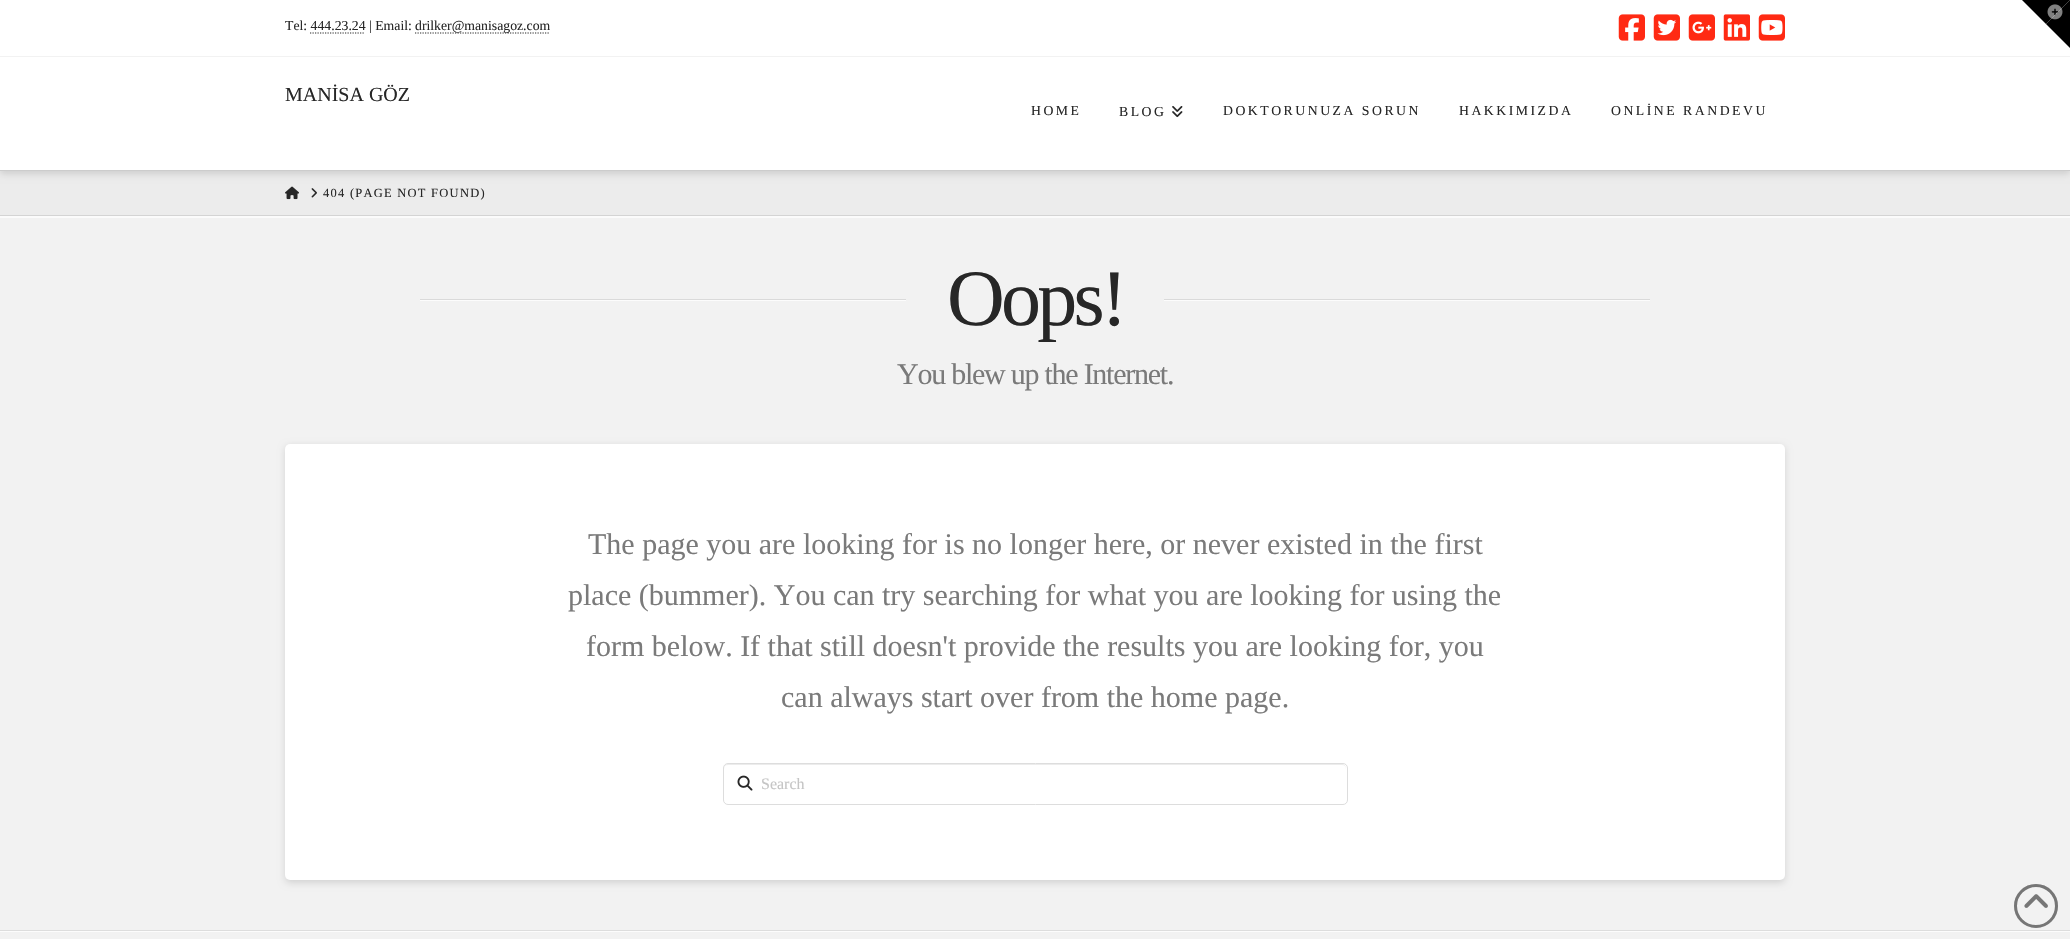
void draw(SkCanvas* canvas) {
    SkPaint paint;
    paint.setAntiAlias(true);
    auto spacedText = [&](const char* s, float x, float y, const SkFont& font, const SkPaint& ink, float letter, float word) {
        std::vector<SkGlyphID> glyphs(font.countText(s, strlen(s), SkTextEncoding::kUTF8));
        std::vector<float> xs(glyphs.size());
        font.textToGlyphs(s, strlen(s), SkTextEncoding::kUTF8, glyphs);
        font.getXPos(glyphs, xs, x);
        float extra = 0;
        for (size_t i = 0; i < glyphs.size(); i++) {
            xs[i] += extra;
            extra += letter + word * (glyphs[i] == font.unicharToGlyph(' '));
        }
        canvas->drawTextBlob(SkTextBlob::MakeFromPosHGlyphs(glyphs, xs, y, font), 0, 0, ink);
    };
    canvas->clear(0xFFF2F2F2);
    paint.setColor(0xFFECECEC);
    canvas->drawRect(SkRect::MakeXYWH(0, 171, 2070, 44), paint);
    paint.setColor(0x21000000);
    paint.setMaskFilter(SkMaskFilter::MakeBlur(kNormal_SkBlurStyle, 3.5f));
    canvas->drawRect(SkRect::MakeXYWH(0, 60, 2070, 114), paint);
    paint.setMaskFilter(nullptr);
    paint.setColor(0xFFFFFFFF);
    canvas->drawRect(SkRect::MakeXYWH(0, 0, 2070, 170), paint);
    paint.setColor(0xFFF2F2F2);
    canvas->drawRect(SkRect::MakeXYWH(0, 56, 2070, 1), paint);
    SkFont font1(fontMgr->matchFamilyStyle("Liberation Serif", SkFontStyle::Normal()), 13.75f);
    font1.setSubpixel(true);
    paint.setColor(0xFF272727);
    canvas->drawString("Tel: 444.23.24 | Email:", 285, 30, font1, paint);
    paint.setStyle(SkPaint::kStroke_Style);
    paint.setStrokeWidth(1.2f);
    paint.setPathEffect(SkDashPathEffect::Make({{1.25f, 1.25f}}, 0));
    canvas->drawPath(SkPathBuilder().moveTo(415, 33).lineTo(550, 33).detach(), paint);
    paint.setPathEffect(nullptr);
    paint.setStyle(SkPaint::kFill_Style);
    canvas->drawString("drilker@manisagoz.com", 415, 30, font1, paint);
    paint.setStyle(SkPaint::kStroke_Style);
    paint.setPathEffect(SkDashPathEffect::Make({{1.25f, 1.25f}}, 0));
    canvas->drawPath(SkPathBuilder().moveTo(310, 33).lineTo(365, 33).detach(), paint);
    paint.setPathEffect(nullptr);
    canvas->drawImageRect(SkImages::DeferredFromEncodedData(SkData::MakeFromFileName("img1.png")), SkRect::MakeXYWH(1618, 14, 27, 27), SkSamplingOptions());
    canvas->drawImageRect(SkImages::DeferredFromEncodedData(SkData::MakeFromFileName("img2.png")), SkRect::MakeXYWH(1653, 14, 27, 27), SkSamplingOptions());
    canvas->drawImageRect(SkImages::DeferredFromEncodedData(SkData::MakeFromFileName("img3.png")), SkRect::MakeXYWH(1688, 14, 27, 27), SkSamplingOptions());
    canvas->drawImageRect(SkImages::DeferredFromEncodedData(SkData::MakeFromFileName("img4.png")), SkRect::MakeXYWH(1723, 14, 27, 27), SkSamplingOptions());
    canvas->drawImageRect(SkImages::DeferredFromEncodedData(SkData::MakeFromFileName("img5.png")), SkRect::MakeXYWH(1758, 14, 27, 27), SkSamplingOptions());
    paint.setStyle(SkPaint::kFill_Style);
    paint.setColor(0xFFCCCCCC);
    canvas->drawRect(SkRect::MakeXYWH(0, 170, 2070, 1), paint);
    SkFont font2(fontMgr->matchFamilyStyle("Liberation Serif", SkFontStyle::Normal()), 20);
    font2.setSubpixel(true);
    paint.setColor(0xFF272727);
    canvas->drawString("MANİSA GÖZ", 285, 101, font2, paint);
    spacedText("HOME", 1031, 115, font1, paint, 2.5f, 0);
    spacedText("BLOG", 1119, 116, font1, paint, 2.5f, 0);
    canvas->drawImageRect(SkImages::DeferredFromEncodedData(SkData::MakeFromFileName("img6.png")), SkRect::MakeXYWH(1172, 106, 11, 12), SkSamplingOptions());
    spacedText("DOKTORUNUZA SORUN", 1223, 115, font1, paint, 2.5f, 0);
    spacedText("HAKKIMIZDA", 1459, 115, font1, paint, 2.5f, 0);
    spacedText("ONLİNE RANDEVU", 1611, 115, font1, paint, 2.5f, 0);
    paint.setColor(0xFFFBFBFB);
    canvas->drawRect(SkRect::MakeXYWH(0, 216, 2070, 2), paint);
    paint.setColor(0xFFD4D4D4);
    canvas->drawRect(SkRect::MakeXYWH(0, 215, 2070, 1), paint);
    canvas->drawImageRect(SkImages::DeferredFromEncodedData(SkData::MakeFromFileName("img7.png")), SkRect::MakeXYWH(285, 186, 14, 14), SkSamplingOptions());
    canvas->drawImageRect(SkImages::DeferredFromEncodedData(SkData::MakeFromFileName("img8.png")), SkRect::MakeXYWH(311, 188, 6, 10), SkSamplingOptions());
    SkFont font3(fontMgr->matchFamilyStyle("Liberation Serif", SkFontStyle::Normal()), 12.5f);
    font3.setSubpixel(true);
    paint.setColor(0xFF272727);
    spacedText("404 (PAGE NOT FOUND)", 323, 197, font3, paint, 1.25f, 0);
    paint.setColor(0xFFFCFCFC);
    canvas->drawRect(SkRect::MakeXYWH(420, 300, 486, 1), paint);
    paint.setColor(0xFFDADADA);
    canvas->drawRect(SkRect::MakeXYWH(420, 299, 486, 1), paint);
    SkFont font4(fontMgr->matchFamilyStyle("Liberation Serif", SkFontStyle::Normal()), 80);
    font4.setSubpixel(true);
    paint.setColor(0xFF272727);
    spacedText("Oops!", 947, 325, font4, paint, -3.75f, 0);
    paint.setColor(0xFFFCFCFC);
    canvas->drawRect(SkRect::MakeXYWH(1164, 300, 486, 1), paint);
    paint.setColor(0xFFDADADA);
    canvas->drawRect(SkRect::MakeXYWH(1164, 299, 486, 1), paint);
    SkFont font5(fontMgr->matchFamilyStyle("Liberation Serif", SkFontStyle::Normal()), 30);
    font5.setSubpixel(true);
    paint.setColor(0xFF7A7A7A);
    spacedText("You blew up the Internet.", 897, 384, font5, paint, -1.25f, 0);
    paint.setColor(0x21000000);
    paint.setMaskFilter(SkMaskFilter::MakeBlur(kNormal_SkBlurStyle, 3.5f));
    canvas->drawRoundRect(SkRect::MakeXYWH(285, 446, 1500, 437), 5, 5, paint);
    paint.setMaskFilter(nullptr);
    paint.setColor(0xFFFFFFFF);
    canvas->drawRoundRect(SkRect::MakeXYWH(285, 444, 1500, 436), 5, 5, paint);
    paint.setColor(0xFF7A7A7A);
    canvas->drawString("The page you are looking for is no longer here, or never existed in the first", 588, 554, font5, paint);
    canvas->drawString("place (bummer). You can try searching for what you are looking for using the", 568, 605, font5, paint);
    canvas->drawString("form below. If that still doesn't provide the results you are looking for, you", 586, 656, font5, paint);
    canvas->drawString("can always start over from the home page.", 781, 707, font5, paint);
    paint.setColor(0xFFECECEC);
    canvas->drawPath(SkPathBuilder().moveTo(728, 765).lineTo(1342, 765).cubicTo(1345, 765, 1346, 767, 1346, 769).lineTo(1346, 768).cubicTo(1346, 766, 1344, 764, 1342, 764).lineTo(728, 764).cubicTo(726, 764, 724, 766, 724, 768).lineTo(724, 769).cubicTo(724, 767, 725, 765, 728, 765).close().detach(), paint);
    paint.setStyle(SkPaint::kStroke_Style);
    paint.setStrokeWidth(1);
    paint.setColor(0xFFDDDDDD);
    canvas->drawRoundRect(SkRect::MakeXYWH(723.5f, 763.5f, 624, 41), 4.5f, 4.5f, paint);
    canvas->drawImageRect(SkImages::DeferredFromEncodedData(SkData::MakeFromFileName("img9.png")), SkRect::MakeXYWH(737, 775, 16, 16), SkSamplingOptions());
    SkFont font6(fontMgr->matchFamilyStyle("Liberation Serif", SkFontStyle::Normal()), 16);
    font6.setSubpixel(true);
    paint.setStyle(SkPaint::kFill_Style);
    paint.setColor(0xFFC5C5C5);
    canvas->drawString("Search", 761, 789, font6, paint);
    paint.setColor(0xFFFCFCFC);
    canvas->drawRect(SkRect::MakeXYWH(0, 931, 2070, 1), paint);
    paint.setColor(0xFFDDDDDD);
    canvas->drawRect(SkRect::MakeXYWH(0, 930, 2070, 1), paint);
    paint.setColor(0xFF000000);
    canvas->drawPath(SkPathBuilder().moveTo(2022, 0).lineTo(2070, 0).lineTo(2046, 24).close().detach(), paint);
    canvas->drawPath(SkPathBuilder().moveTo(2070, 0).lineTo(2070, 48).lineTo(2046, 24).close().detach(), paint);
    canvas->drawImageRect(SkImages::DeferredFromEncodedData(SkData::MakeFromFileName("img10.png")), SkRect::MakeXYWH(2047, 4, 16, 16), SkSamplingOptions());
    paint.setStyle(SkPaint::kStroke_Style);
    paint.setStrokeWidth(3);
    paint.setColor(0xFFA6A6A6);
    canvas->drawCircle(2036, 906, 20.5f, paint);
    canvas->drawImageRect(SkImages::DeferredFromEncodedData(SkData::MakeFromFileName("img11.png")), SkRect::MakeXYWH(2024, 894, 24, 14), SkSamplingOptions());
    paint.setColor(0x61272727);
    canvas->drawCircle(2036, 906, 20.5f, paint);
    canvas->drawImageRect(SkImages::DeferredFromEncodedData(SkData::MakeFromFileName("img12.png")), SkRect::MakeXYWH(2024, 894, 24, 14), SkSamplingOptions());
}
